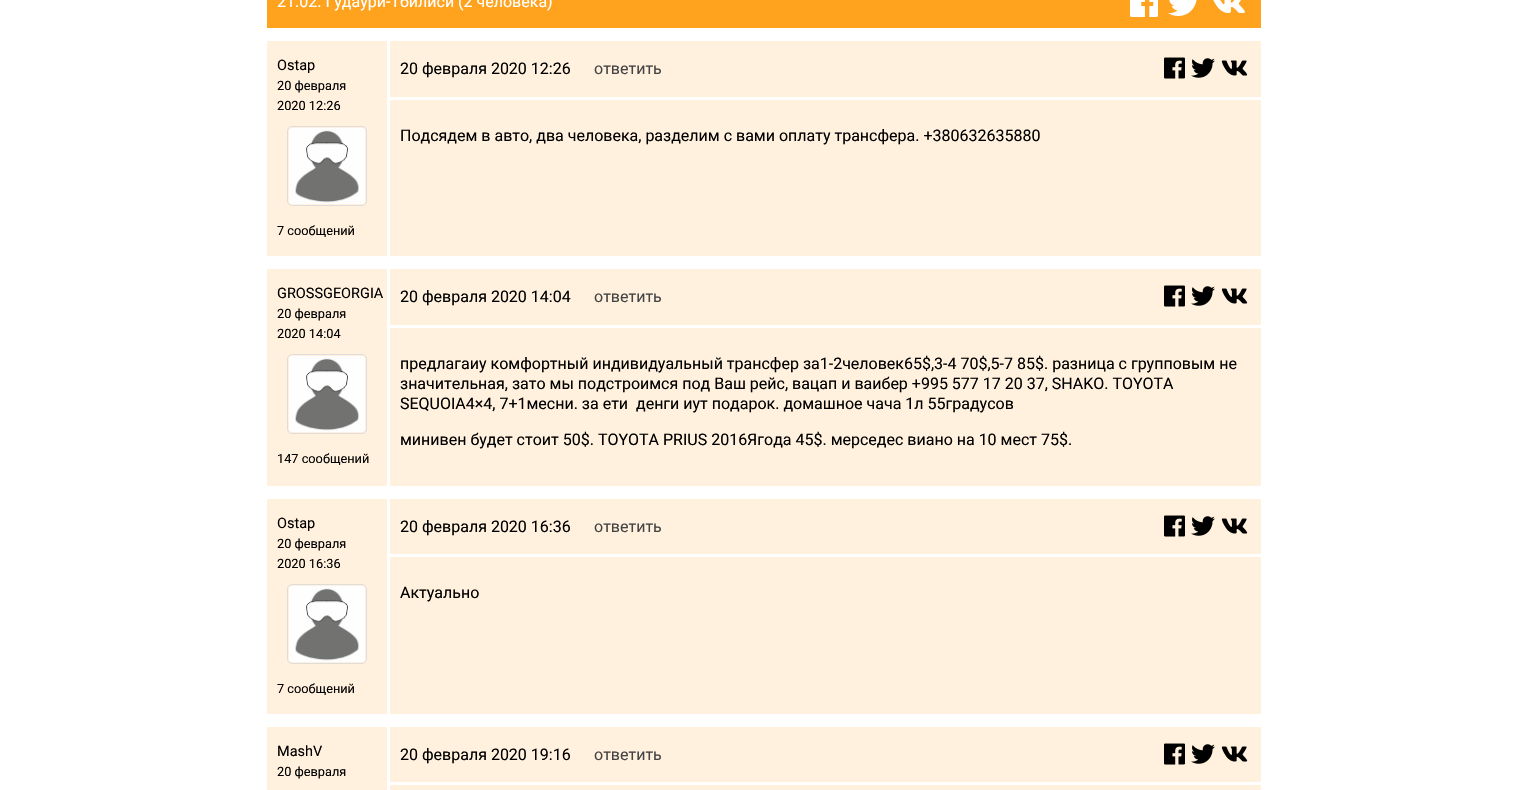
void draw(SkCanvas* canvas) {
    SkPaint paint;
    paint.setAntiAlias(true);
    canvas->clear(0xFFFFFFFF);
    paint.setColor(0xFFFFA21E);
    canvas->drawRect(SkRect::MakeXYWH(267, 0, 994, 28), paint);
    SkFont font1(fontMgr->matchFamilyStyle("Roboto", SkFontStyle::Normal()), 16);
    font1.setSubpixel(true);
    paint.setColor(0xFFFFFFFF);
    canvas->drawString("21.02. Гудаури-Тбилиси (2 человека)", 277, 7, font1, paint);
    canvas->drawImageRect(SkImages::DeferredFromEncodedData(SkData::MakeFromFileName("img1.png")), SkRect::MakeXYWH(1130, 0, 28, 17), SkSamplingOptions());
    canvas->drawImageRect(SkImages::DeferredFromEncodedData(SkData::MakeFromFileName("img2.png")), SkRect::MakeXYWH(1168, 0, 29, 16), SkSamplingOptions());
    canvas->drawImageRect(SkImages::DeferredFromEncodedData(SkData::MakeFromFileName("img3.png")), SkRect::MakeXYWH(1213, 0, 32, 13), SkSamplingOptions());
    paint.setColor(0xFFFFF1DD);
    canvas->drawRect(SkRect::MakeXYWH(267, 41, 120, 215), paint);
    SkFont font2(fontMgr->matchFamilyStyle("Roboto", SkFontStyle::Normal()), 14.5f);
    font2.setSubpixel(true);
    paint.setColor(0xFF000000);
    canvas->drawString("Ostap", 277, 70, font2, paint);
    SkFont font3(fontMgr->matchFamilyStyle("Roboto", SkFontStyle::Normal()), 12.75f);
    font3.setSubpixel(true);
    canvas->drawString("20 февраля", 277, 90, font3, paint);
    canvas->drawString("2020 12:26", 277, 110, font3, paint);
    paint.setStyle(SkPaint::kStroke_Style);
    paint.setStrokeWidth(1);
    paint.setColor(0xFFDDDDDD);
    canvas->drawRoundRect(SkRect::MakeXYWH(287.5f, 126.5f, 79, 79), 4.5f, 4.5f, paint);
    canvas->drawImageRect(SkImages::DeferredFromEncodedData(SkData::MakeFromFileName("img4.png")), SkRect::MakeXYWH(289, 128, 76, 76), SkSamplingOptions());
    paint.setStyle(SkPaint::kFill_Style);
    paint.setColor(0xFF000000);
    canvas->drawString("7 сообщений", 277, 235, font3, paint);
    paint.setColor(0xFFFFF1DD);
    canvas->drawRect(SkRect::MakeXYWH(390, 41, 871, 56), paint);
    paint.setColor(0xFF000000);
    canvas->drawString("20 февраля 2020 12:26", 400, 74, font1, paint);
    paint.setColor(0xFF444444);
    canvas->drawString("ответить", 594, 74, font1, paint);
    canvas->drawImageRect(SkImages::DeferredFromEncodedData(SkData::MakeFromFileName("img5.png")), SkRect::MakeXYWH(1164, 57, 21, 22), SkSamplingOptions());
    canvas->drawImageRect(SkImages::DeferredFromEncodedData(SkData::MakeFromFileName("img6.png")), SkRect::MakeXYWH(1191, 58, 24, 20), SkSamplingOptions());
    canvas->drawImageRect(SkImages::DeferredFromEncodedData(SkData::MakeFromFileName("img7.png")), SkRect::MakeXYWH(1221, 60, 27, 16), SkSamplingOptions());
    paint.setColor(0xFFFFF1DD);
    canvas->drawRect(SkRect::MakeXYWH(390, 100, 871, 156), paint);
    paint.setColor(0xFF000000);
    canvas->drawString("Подсядем в авто, два человека, разделим с вами оплату трансфера. +380632635880", 400, 141, font1, paint);
    paint.setColor(0xFFFFF1DD);
    canvas->drawRect(SkRect::MakeXYWH(267, 269, 120, 217), paint);
    paint.setColor(0xFF000000);
    canvas->drawString("GROSSGEORGIA", 277, 298, font2, paint);
    canvas->drawString("20 февраля", 277, 318, font3, paint);
    canvas->drawString("2020 14:04", 277, 338, font3, paint);
    paint.setStyle(SkPaint::kStroke_Style);
    paint.setColor(0xFFDDDDDD);
    canvas->drawRoundRect(SkRect::MakeXYWH(287.5f, 354.5f, 79, 79), 4.5f, 4.5f, paint);
    canvas->drawImageRect(SkImages::DeferredFromEncodedData(SkData::MakeFromFileName("img4.png")), SkRect::MakeXYWH(289, 356, 76, 76), SkSamplingOptions());
    paint.setStyle(SkPaint::kFill_Style);
    paint.setColor(0xFF000000);
    canvas->drawString("147 сообщений", 277, 463, font3, paint);
    paint.setColor(0xFFFFF1DD);
    canvas->drawRect(SkRect::MakeXYWH(390, 269, 871, 56), paint);
    paint.setColor(0xFF000000);
    canvas->drawString("20 февраля 2020 14:04", 400, 302, font1, paint);
    paint.setColor(0xFF444444);
    canvas->drawString("ответить", 594, 302, font1, paint);
    canvas->drawImageRect(SkImages::DeferredFromEncodedData(SkData::MakeFromFileName("img5.png")), SkRect::MakeXYWH(1164, 285, 21, 22), SkSamplingOptions());
    canvas->drawImageRect(SkImages::DeferredFromEncodedData(SkData::MakeFromFileName("img6.png")), SkRect::MakeXYWH(1191, 286, 24, 20), SkSamplingOptions());
    canvas->drawImageRect(SkImages::DeferredFromEncodedData(SkData::MakeFromFileName("img7.png")), SkRect::MakeXYWH(1221, 288, 27, 16), SkSamplingOptions());
    paint.setColor(0xFFFFF1DD);
    canvas->drawRect(SkRect::MakeXYWH(390, 328, 871, 158), paint);
    paint.setColor(0xFF000000);
    canvas->drawString("предлагаиу комфортный индивидуальный трансфер за1-2человек65$,3-4 70$,5-7 85$. разница с групповым не", 400, 369, font1, paint);
    canvas->drawString("значительная, зато мы подстроимся под Ваш рейс, вацап и ваибер +995 577 17 20 37, SHAKO. TOYOTA", 400, 389, font1, paint);
    canvas->drawString("SEQUOIA4×4, 7+1месни. за ети  денги иут подарок. домашное чача 1л 55градусов", 400, 409, font1, paint);
    canvas->drawString("минивен будет стоит 50$. TOYOTA PRIUS 2016Ягода 45$. мерседес виано на 10 мест 75$.", 400, 445, font1, paint);
    paint.setColor(0xFFFFF1DD);
    canvas->drawRect(SkRect::MakeXYWH(267, 499, 120, 215), paint);
    paint.setColor(0xFF000000);
    canvas->drawString("Ostap", 277, 528, font2, paint);
    canvas->drawString("20 февраля", 277, 548, font3, paint);
    canvas->drawString("2020 16:36", 277, 568, font3, paint);
    paint.setStyle(SkPaint::kStroke_Style);
    paint.setColor(0xFFDDDDDD);
    canvas->drawRoundRect(SkRect::MakeXYWH(287.5f, 584.5f, 79, 79), 4.5f, 4.5f, paint);
    canvas->drawImageRect(SkImages::DeferredFromEncodedData(SkData::MakeFromFileName("img8.png")), SkRect::MakeXYWH(289, 586, 76, 76), SkSamplingOptions());
    paint.setStyle(SkPaint::kFill_Style);
    paint.setColor(0xFF000000);
    canvas->drawString("7 сообщений", 277, 693, font3, paint);
    paint.setColor(0xFFFFF1DD);
    canvas->drawRect(SkRect::MakeXYWH(390, 499, 871, 55), paint);
    paint.setColor(0xFF000000);
    canvas->drawString("20 февраля 2020 16:36", 400, 532, font1, paint);
    paint.setColor(0xFF444444);
    canvas->drawString("ответить", 594, 532, font1, paint);
    canvas->drawImageRect(SkImages::DeferredFromEncodedData(SkData::MakeFromFileName("img5.png")), SkRect::MakeXYWH(1164, 515, 21, 22), SkSamplingOptions());
    canvas->drawImageRect(SkImages::DeferredFromEncodedData(SkData::MakeFromFileName("img6.png")), SkRect::MakeXYWH(1191, 516, 24, 20), SkSamplingOptions());
    canvas->drawImageRect(SkImages::DeferredFromEncodedData(SkData::MakeFromFileName("img7.png")), SkRect::MakeXYWH(1221, 518, 27, 16), SkSamplingOptions());
    paint.setColor(0xFFFFF1DD);
    canvas->drawRect(SkRect::MakeXYWH(390, 557, 871, 157), paint);
    paint.setColor(0xFF000000);
    canvas->drawString("Актуально", 400, 598, font1, paint);
    paint.setColor(0xFFFFF1DD);
    canvas->drawRect(SkRect::MakeXYWH(267, 727, 120, 63), paint);
    paint.setColor(0xFF000000);
    canvas->drawString("MashV", 277, 756, font2, paint);
    canvas->drawString("20 февраля", 277, 776, font3, paint);
    paint.setColor(0xFFFFF1DD);
    canvas->drawRect(SkRect::MakeXYWH(390, 727, 871, 55), paint);
    paint.setColor(0xFF000000);
    canvas->drawString("20 февраля 2020 19:16", 400, 760, font1, paint);
    paint.setColor(0xFF444444);
    canvas->drawString("ответить", 594, 760, font1, paint);
    canvas->drawImageRect(SkImages::DeferredFromEncodedData(SkData::MakeFromFileName("img5.png")), SkRect::MakeXYWH(1164, 743, 21, 22), SkSamplingOptions());
    canvas->drawImageRect(SkImages::DeferredFromEncodedData(SkData::MakeFromFileName("img6.png")), SkRect::MakeXYWH(1191, 744, 24, 20), SkSamplingOptions());
    canvas->drawImageRect(SkImages::DeferredFromEncodedData(SkData::MakeFromFileName("img7.png")), SkRect::MakeXYWH(1221, 746, 27, 16), SkSamplingOptions());
    paint.setColor(0xFFFFF1DD);
    canvas->drawRect(SkRect::MakeXYWH(390, 785, 871, 5), paint);
}
